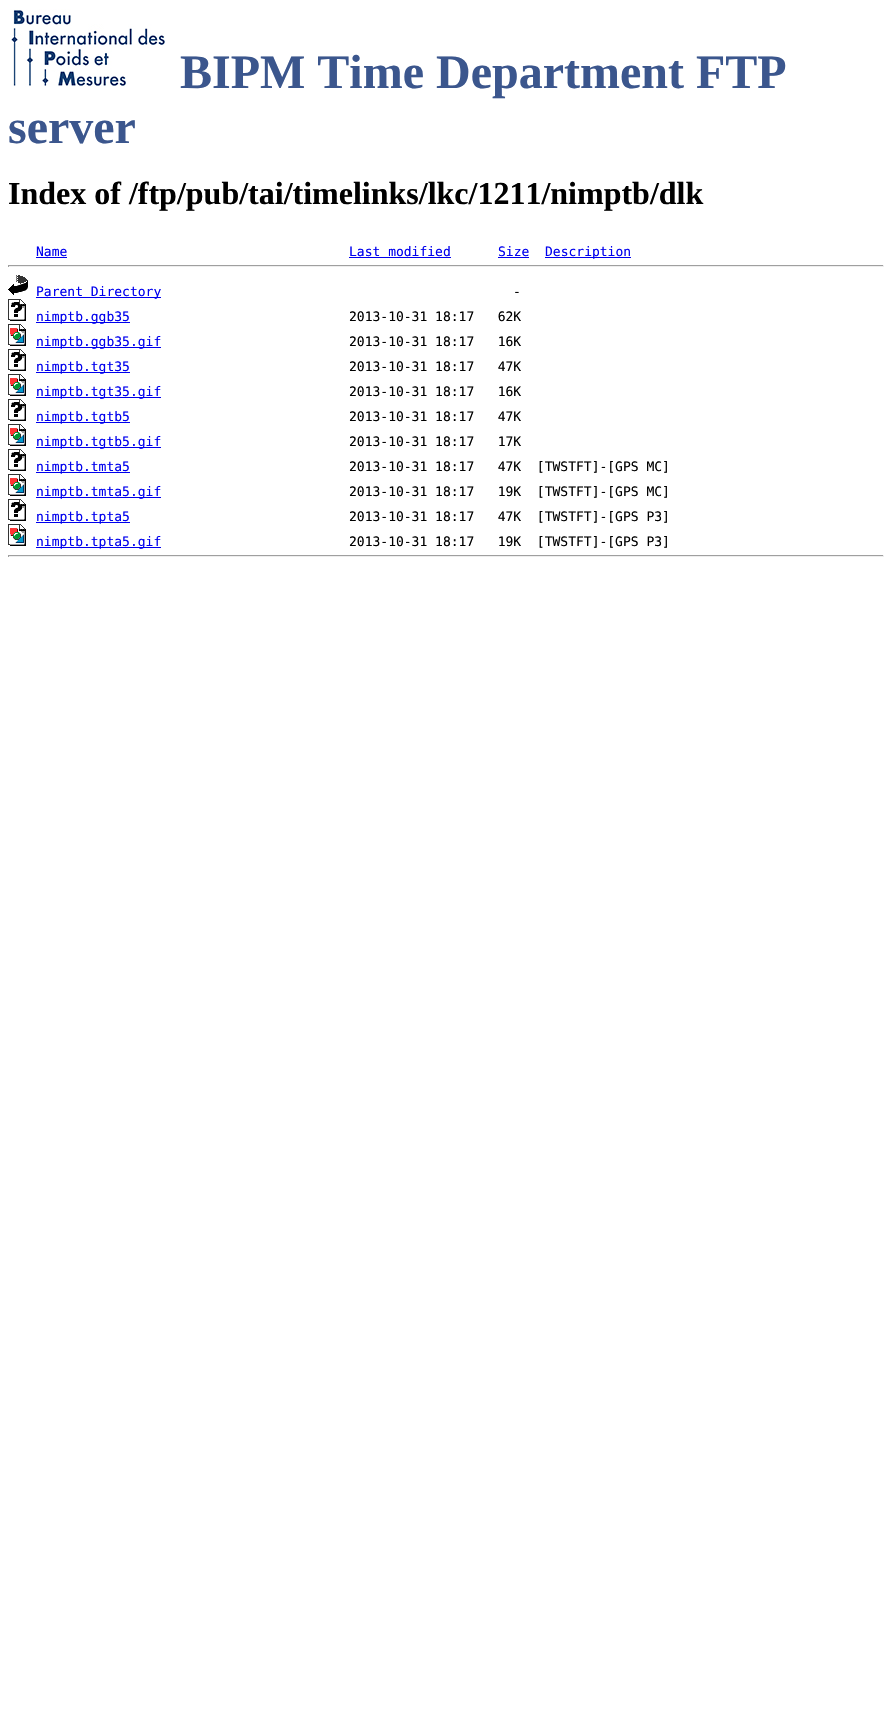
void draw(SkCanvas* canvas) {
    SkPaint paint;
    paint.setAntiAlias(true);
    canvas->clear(0xFFFFFFFF);
    canvas->drawImageRect(SkImages::DeferredFromEncodedData(SkData::MakeFromFileName("img1.png")), SkRect::MakeXYWH(10, 9, 155, 78), SkSamplingOptions());
    SkFont font1(fontMgr->matchFamilyStyle("Liberation Serif", SkFontStyle::Bold()), 48);
    font1.setSubpixel(true);
    paint.setColor(0xFF3B568D);
    canvas->drawString("BIPM Time Department FTP", 180, 88, font1, paint);
    canvas->drawString("server", 8, 143, font1, paint);
    SkFont font2(fontMgr->matchFamilyStyle("Liberation Serif", SkFontStyle::Bold()), 32);
    font2.setSubpixel(true);
    paint.setColor(0xFF000000);
    canvas->drawString("Index of /ftp/pub/tai/timelinks/lkc/1211/nimptb/dlk", 8, 204, font2, paint);
    SkFont font3(fontMgr->matchFamilyStyle("DejaVu Sans Mono", SkFontStyle::Normal()), 13);
    font3.setSubpixel(true);
    paint.setColor(0xFF0000EE);
    canvas->drawString("Name", 36, 256, font3, paint);
    canvas->drawRect(SkRect::MakeXYWH(36, 257, 31, 1), paint);
    canvas->drawString("Last modified", 349, 256, font3, paint);
    canvas->drawRect(SkRect::MakeXYWH(349, 257, 102, 1), paint);
    canvas->drawString("Size", 498, 256, font3, paint);
    canvas->drawRect(SkRect::MakeXYWH(498, 257, 31, 1), paint);
    canvas->drawRect(SkRect::MakeXYWH(545, 257, 86, 1), paint);
    canvas->drawString("Description", 545, 256, font3, paint);
    paint.setColor(0xFF9F9F9F);
    canvas->drawRect(SkRect::MakeXYWH(8, 265, 876, 1), paint);
    paint.setColor(0xFFEEEEEE);
    canvas->drawRect(SkRect::MakeXYWH(883, 265, 1, 2), paint);
    canvas->drawRect(SkRect::MakeXYWH(8, 266, 876, 1), paint);
    paint.setColor(0xFF9F9F9F);
    canvas->drawRect(SkRect::MakeXYWH(8, 265, 1, 2), paint);
    canvas->drawImageRect(SkImages::DeferredFromEncodedData(SkData::MakeFromFileName("img2.png")), SkRect::MakeXYWH(8, 275, 20, 20), SkSamplingOptions());
    paint.setColor(0xFF0000EE);
    canvas->drawRect(SkRect::MakeXYWH(36, 297, 125, 1), paint);
    canvas->drawString("Parent Directory", 36, 296, font3, paint);
    paint.setColor(0xFF000000);
    canvas->drawString("-", 513, 296, font3, paint);
    canvas->drawImageRect(SkImages::DeferredFromEncodedData(SkData::MakeFromFileName("img3.png")), SkRect::MakeXYWH(8, 299, 18, 22), SkSamplingOptions());
    paint.setColor(0xFF0000EE);
    canvas->drawRect(SkRect::MakeXYWH(36, 322, 94, 1), paint);
    canvas->drawString("nimptb.ggb35", 36, 321, font3, paint);
    paint.setColor(0xFF000000);
    canvas->drawString("2013-10-31 18:17   62K", 349, 321, font3, paint);
    canvas->drawImageRect(SkImages::DeferredFromEncodedData(SkData::MakeFromFileName("img4.png")), SkRect::MakeXYWH(8, 324, 18, 22), SkSamplingOptions());
    paint.setColor(0xFF0000EE);
    canvas->drawRect(SkRect::MakeXYWH(36, 347, 125, 1), paint);
    canvas->drawString("nimptb.ggb35.gif", 36, 346, font3, paint);
    paint.setColor(0xFF000000);
    canvas->drawString("2013-10-31 18:17   16K", 349, 346, font3, paint);
    canvas->drawImageRect(SkImages::DeferredFromEncodedData(SkData::MakeFromFileName("img3.png")), SkRect::MakeXYWH(8, 349, 18, 22), SkSamplingOptions());
    paint.setColor(0xFF0000EE);
    canvas->drawRect(SkRect::MakeXYWH(36, 372, 94, 1), paint);
    canvas->drawString("nimptb.tgt35", 36, 371, font3, paint);
    paint.setColor(0xFF000000);
    canvas->drawString("2013-10-31 18:17   47K", 349, 371, font3, paint);
    canvas->drawImageRect(SkImages::DeferredFromEncodedData(SkData::MakeFromFileName("img4.png")), SkRect::MakeXYWH(8, 374, 18, 22), SkSamplingOptions());
    paint.setColor(0xFF0000EE);
    canvas->drawRect(SkRect::MakeXYWH(36, 397, 125, 1), paint);
    canvas->drawString("nimptb.tgt35.gif", 36, 396, font3, paint);
    paint.setColor(0xFF000000);
    canvas->drawString("2013-10-31 18:17   16K", 349, 396, font3, paint);
    canvas->drawImageRect(SkImages::DeferredFromEncodedData(SkData::MakeFromFileName("img3.png")), SkRect::MakeXYWH(8, 399, 18, 22), SkSamplingOptions());
    paint.setColor(0xFF0000EE);
    canvas->drawRect(SkRect::MakeXYWH(36, 422, 94, 1), paint);
    canvas->drawString("nimptb.tgtb5", 36, 421, font3, paint);
    paint.setColor(0xFF000000);
    canvas->drawString("2013-10-31 18:17   47K", 349, 421, font3, paint);
    canvas->drawImageRect(SkImages::DeferredFromEncodedData(SkData::MakeFromFileName("img4.png")), SkRect::MakeXYWH(8, 424, 18, 22), SkSamplingOptions());
    paint.setColor(0xFF0000EE);
    canvas->drawRect(SkRect::MakeXYWH(36, 447, 125, 1), paint);
    canvas->drawString("nimptb.tgtb5.gif", 36, 446, font3, paint);
    paint.setColor(0xFF000000);
    canvas->drawString("2013-10-31 18:17   17K", 349, 446, font3, paint);
    canvas->drawImageRect(SkImages::DeferredFromEncodedData(SkData::MakeFromFileName("img3.png")), SkRect::MakeXYWH(8, 449, 18, 22), SkSamplingOptions());
    paint.setColor(0xFF0000EE);
    canvas->drawRect(SkRect::MakeXYWH(36, 472, 94, 1), paint);
    canvas->drawString("nimptb.tmta5", 36, 471, font3, paint);
    paint.setColor(0xFF000000);
    canvas->drawString("2013-10-31 18:17   47K  [TWSTFT]-[GPS MC]", 349, 471, font3, paint);
    canvas->drawImageRect(SkImages::DeferredFromEncodedData(SkData::MakeFromFileName("img4.png")), SkRect::MakeXYWH(8, 474, 18, 22), SkSamplingOptions());
    paint.setColor(0xFF0000EE);
    canvas->drawRect(SkRect::MakeXYWH(36, 497, 125, 1), paint);
    canvas->drawString("nimptb.tmta5.gif", 36, 496, font3, paint);
    paint.setColor(0xFF000000);
    canvas->drawString("2013-10-31 18:17   19K  [TWSTFT]-[GPS MC]", 349, 496, font3, paint);
    canvas->drawImageRect(SkImages::DeferredFromEncodedData(SkData::MakeFromFileName("img3.png")), SkRect::MakeXYWH(8, 499, 18, 22), SkSamplingOptions());
    paint.setColor(0xFF0000EE);
    canvas->drawRect(SkRect::MakeXYWH(36, 522, 94, 1), paint);
    canvas->drawString("nimptb.tpta5", 36, 521, font3, paint);
    paint.setColor(0xFF000000);
    canvas->drawString("2013-10-31 18:17   47K  [TWSTFT]-[GPS P3]", 349, 521, font3, paint);
    canvas->drawImageRect(SkImages::DeferredFromEncodedData(SkData::MakeFromFileName("img4.png")), SkRect::MakeXYWH(8, 524, 18, 22), SkSamplingOptions());
    paint.setColor(0xFF0000EE);
    canvas->drawRect(SkRect::MakeXYWH(36, 547, 125, 1), paint);
    canvas->drawString("nimptb.tpta5.gif", 36, 546, font3, paint);
    paint.setColor(0xFF000000);
    canvas->drawString("2013-10-31 18:17   19K  [TWSTFT]-[GPS P3]", 349, 546, font3, paint);
    paint.setColor(0xFF9F9F9F);
    canvas->drawRect(SkRect::MakeXYWH(8, 555, 876, 1), paint);
    paint.setColor(0xFFEEEEEE);
    canvas->drawRect(SkRect::MakeXYWH(883, 555, 1, 2), paint);
    canvas->drawRect(SkRect::MakeXYWH(8, 556, 876, 1), paint);
    paint.setColor(0xFF9F9F9F);
    canvas->drawRect(SkRect::MakeXYWH(8, 555, 1, 2), paint);
}
